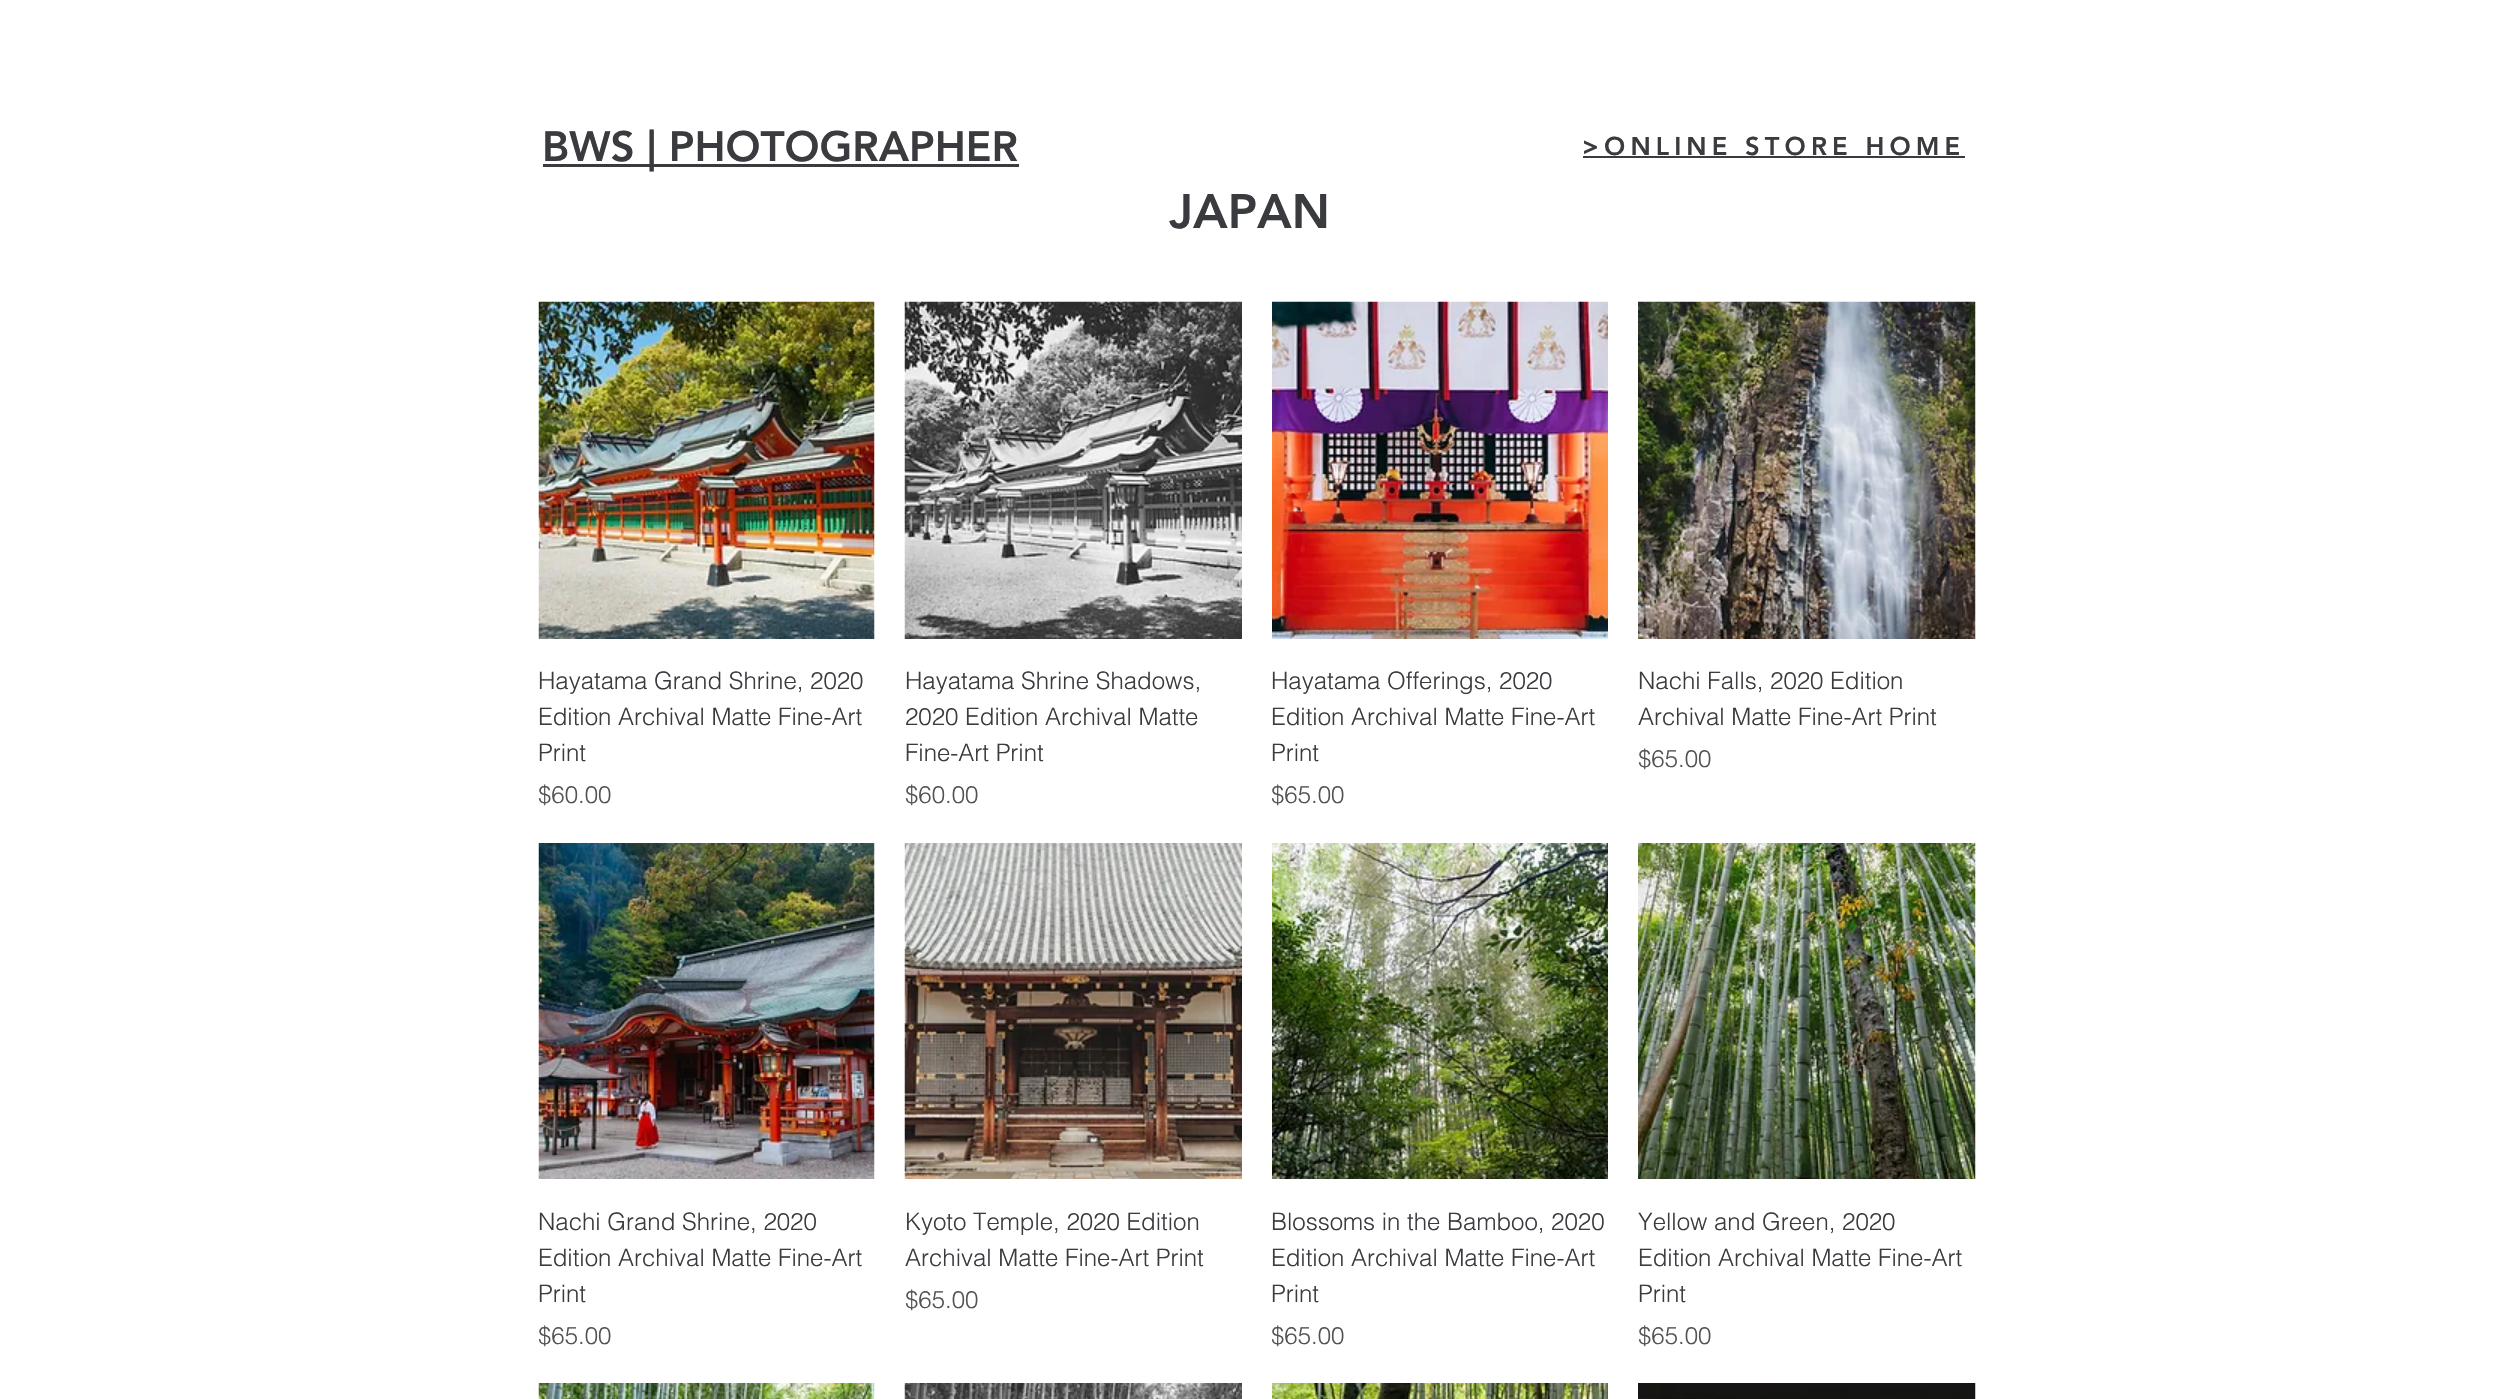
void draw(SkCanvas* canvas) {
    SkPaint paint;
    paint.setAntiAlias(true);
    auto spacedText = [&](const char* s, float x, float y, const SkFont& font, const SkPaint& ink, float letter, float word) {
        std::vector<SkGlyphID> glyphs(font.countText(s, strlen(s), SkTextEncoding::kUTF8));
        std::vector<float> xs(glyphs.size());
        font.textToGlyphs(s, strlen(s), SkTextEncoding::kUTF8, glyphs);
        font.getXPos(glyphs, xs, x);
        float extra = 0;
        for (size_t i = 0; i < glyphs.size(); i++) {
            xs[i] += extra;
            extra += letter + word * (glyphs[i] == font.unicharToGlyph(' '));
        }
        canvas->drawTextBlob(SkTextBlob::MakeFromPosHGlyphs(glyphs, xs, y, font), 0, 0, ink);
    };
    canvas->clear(0xFFFFFFFF);
    paint.setColor(0xFF3A3B3F);
    canvas->drawRect(SkRect::MakeXYWH(543, 164, 476, 3), paint);
    SkFont font1(fontMgr->matchFamilyStyle("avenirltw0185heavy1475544", SkFontStyle(900, SkFontStyle::kNormal_Width, SkFontStyle::kUpright_Slant)), 42);
    font1.setSubpixel(true);
    canvas->drawString("BWS | PHOTOGRAPHER", 542, 161, font1, paint);
    SkFont font2(fontMgr->matchFamilyStyle("avenirltw0185heavy1475544", SkFontStyle(900, SkFontStyle::kNormal_Width, SkFontStyle::kUpright_Slant)), 25.5f);
    font2.setSubpixel(true);
    spacedText(">ONLINE STORE HOME", 1582, 155, font2, paint, 5.1f, 0);
    canvas->drawRect(SkRect::MakeXYWH(1583, 156, 382, 2), paint);
    SkFont font3(fontMgr->matchFamilyStyle("avenirltw0185heavy1475544", SkFontStyle(900, SkFontStyle::kNormal_Width, SkFontStyle::kUpright_Slant)), 48);
    font3.setSubpixel(true);
    canvas->drawString("JAPAN", 1169, 228, font3, paint);
    canvas->drawImageRect(SkImages::DeferredFromEncodedData(SkData::MakeFromFileName("img1.png")), SkRect::MakeXYWH(538, 301, 337, 338), SkSamplingOptions());
    SkFont font4(fontMgr->matchFamilyStyle("helvetica", SkFontStyle(300, SkFontStyle::kNormal_Width, SkFontStyle::kUpright_Slant)), 24);
    font4.setSubpixel(true);
    canvas->drawString("Hayatama Grand Shrine, 2020", 538, 689, font4, paint);
    canvas->drawString("Edition Archival Matte Fine-Art", 538, 725, font4, paint);
    canvas->drawString("Print", 538, 761, font4, paint);
    paint.setColor(0xFF525252);
    canvas->drawString("$60.00", 538, 803, font4, paint);
    canvas->drawImageRect(SkImages::DeferredFromEncodedData(SkData::MakeFromFileName("img2.png")), SkRect::MakeXYWH(904, 301, 338, 338), SkSamplingOptions());
    paint.setColor(0xFF3A3B3F);
    canvas->drawString("Hayatama Shrine Shadows,", 905, 689, font4, paint);
    canvas->drawString("2020 Edition Archival Matte", 905, 725, font4, paint);
    canvas->drawString("Fine-Art Print", 905, 761, font4, paint);
    paint.setColor(0xFF525252);
    canvas->drawString("$60.00", 905, 803, font4, paint);
    canvas->drawImageRect(SkImages::DeferredFromEncodedData(SkData::MakeFromFileName("img3.png")), SkRect::MakeXYWH(1272, 301, 336, 338), SkSamplingOptions());
    paint.setColor(0xFF3A3B3F);
    canvas->drawString("Hayatama Offerings, 2020", 1271, 689, font4, paint);
    canvas->drawString("Edition Archival Matte Fine-Art", 1271, 725, font4, paint);
    canvas->drawString("Print", 1271, 761, font4, paint);
    paint.setColor(0xFF525252);
    canvas->drawString("$65.00", 1271, 803, font4, paint);
    canvas->drawImageRect(SkImages::DeferredFromEncodedData(SkData::MakeFromFileName("img4.png")), SkRect::MakeXYWH(1638, 301, 338, 338), SkSamplingOptions());
    paint.setColor(0xFF3A3B3F);
    canvas->drawString("Nachi Falls, 2020 Edition", 1638, 689, font4, paint);
    canvas->drawString("Archival Matte Fine-Art Print", 1638, 725, font4, paint);
    paint.setColor(0xFF525252);
    canvas->drawString("$65.00", 1638, 767, font4, paint);
    canvas->drawImageRect(SkImages::DeferredFromEncodedData(SkData::MakeFromFileName("img5.png")), SkRect::MakeXYWH(538, 843, 337, 336), SkSamplingOptions());
    paint.setColor(0xFF3A3B3F);
    canvas->drawString("Nachi Grand Shrine, 2020", 538, 1230, font4, paint);
    canvas->drawString("Edition Archival Matte Fine-Art", 538, 1266, font4, paint);
    canvas->drawString("Print", 538, 1302, font4, paint);
    paint.setColor(0xFF525252);
    canvas->drawString("$65.00", 538, 1344, font4, paint);
    canvas->drawImageRect(SkImages::DeferredFromEncodedData(SkData::MakeFromFileName("img6.png")), SkRect::MakeXYWH(904, 843, 338, 336), SkSamplingOptions());
    paint.setColor(0xFF3A3B3F);
    canvas->drawString("Kyoto Temple, 2020 Edition", 905, 1230, font4, paint);
    canvas->drawString("Archival Matte Fine-Art Print", 905, 1266, font4, paint);
    paint.setColor(0xFF525252);
    canvas->drawString("$65.00", 905, 1308, font4, paint);
    canvas->drawImageRect(SkImages::DeferredFromEncodedData(SkData::MakeFromFileName("img7.png")), SkRect::MakeXYWH(1272, 843, 336, 336), SkSamplingOptions());
    paint.setColor(0xFF3A3B3F);
    canvas->drawString("Blossoms in the Bamboo, 2020", 1271, 1230, font4, paint);
    canvas->drawString("Edition Archival Matte Fine-Art", 1271, 1266, font4, paint);
    canvas->drawString("Print", 1271, 1302, font4, paint);
    paint.setColor(0xFF525252);
    canvas->drawString("$65.00", 1271, 1344, font4, paint);
    canvas->drawImageRect(SkImages::DeferredFromEncodedData(SkData::MakeFromFileName("img8.png")), SkRect::MakeXYWH(1638, 843, 338, 336), SkSamplingOptions());
    paint.setColor(0xFF3A3B3F);
    canvas->drawString("Yellow and Green, 2020", 1638, 1230, font4, paint);
    canvas->drawString("Edition Archival Matte Fine-Art", 1638, 1266, font4, paint);
    canvas->drawString("Print", 1638, 1302, font4, paint);
    paint.setColor(0xFF525252);
    canvas->drawString("$65.00", 1638, 1344, font4, paint);
    canvas->drawImageRect(SkImages::DeferredFromEncodedData(SkData::MakeFromFileName("img9.png")), SkRect::MakeXYWH(538, 1383, 337, 16), SkSamplingOptions());
    canvas->drawImageRect(SkImages::DeferredFromEncodedData(SkData::MakeFromFileName("img10.png")), SkRect::MakeXYWH(904, 1383, 338, 16), SkSamplingOptions());
    canvas->drawImageRect(SkImages::DeferredFromEncodedData(SkData::MakeFromFileName("img11.png")), SkRect::MakeXYWH(1272, 1383, 336, 16), SkSamplingOptions());
    canvas->drawImageRect(SkImages::DeferredFromEncodedData(SkData::MakeFromFileName("img12.png")), SkRect::MakeXYWH(1638, 1383, 338, 16), SkSamplingOptions());
}
